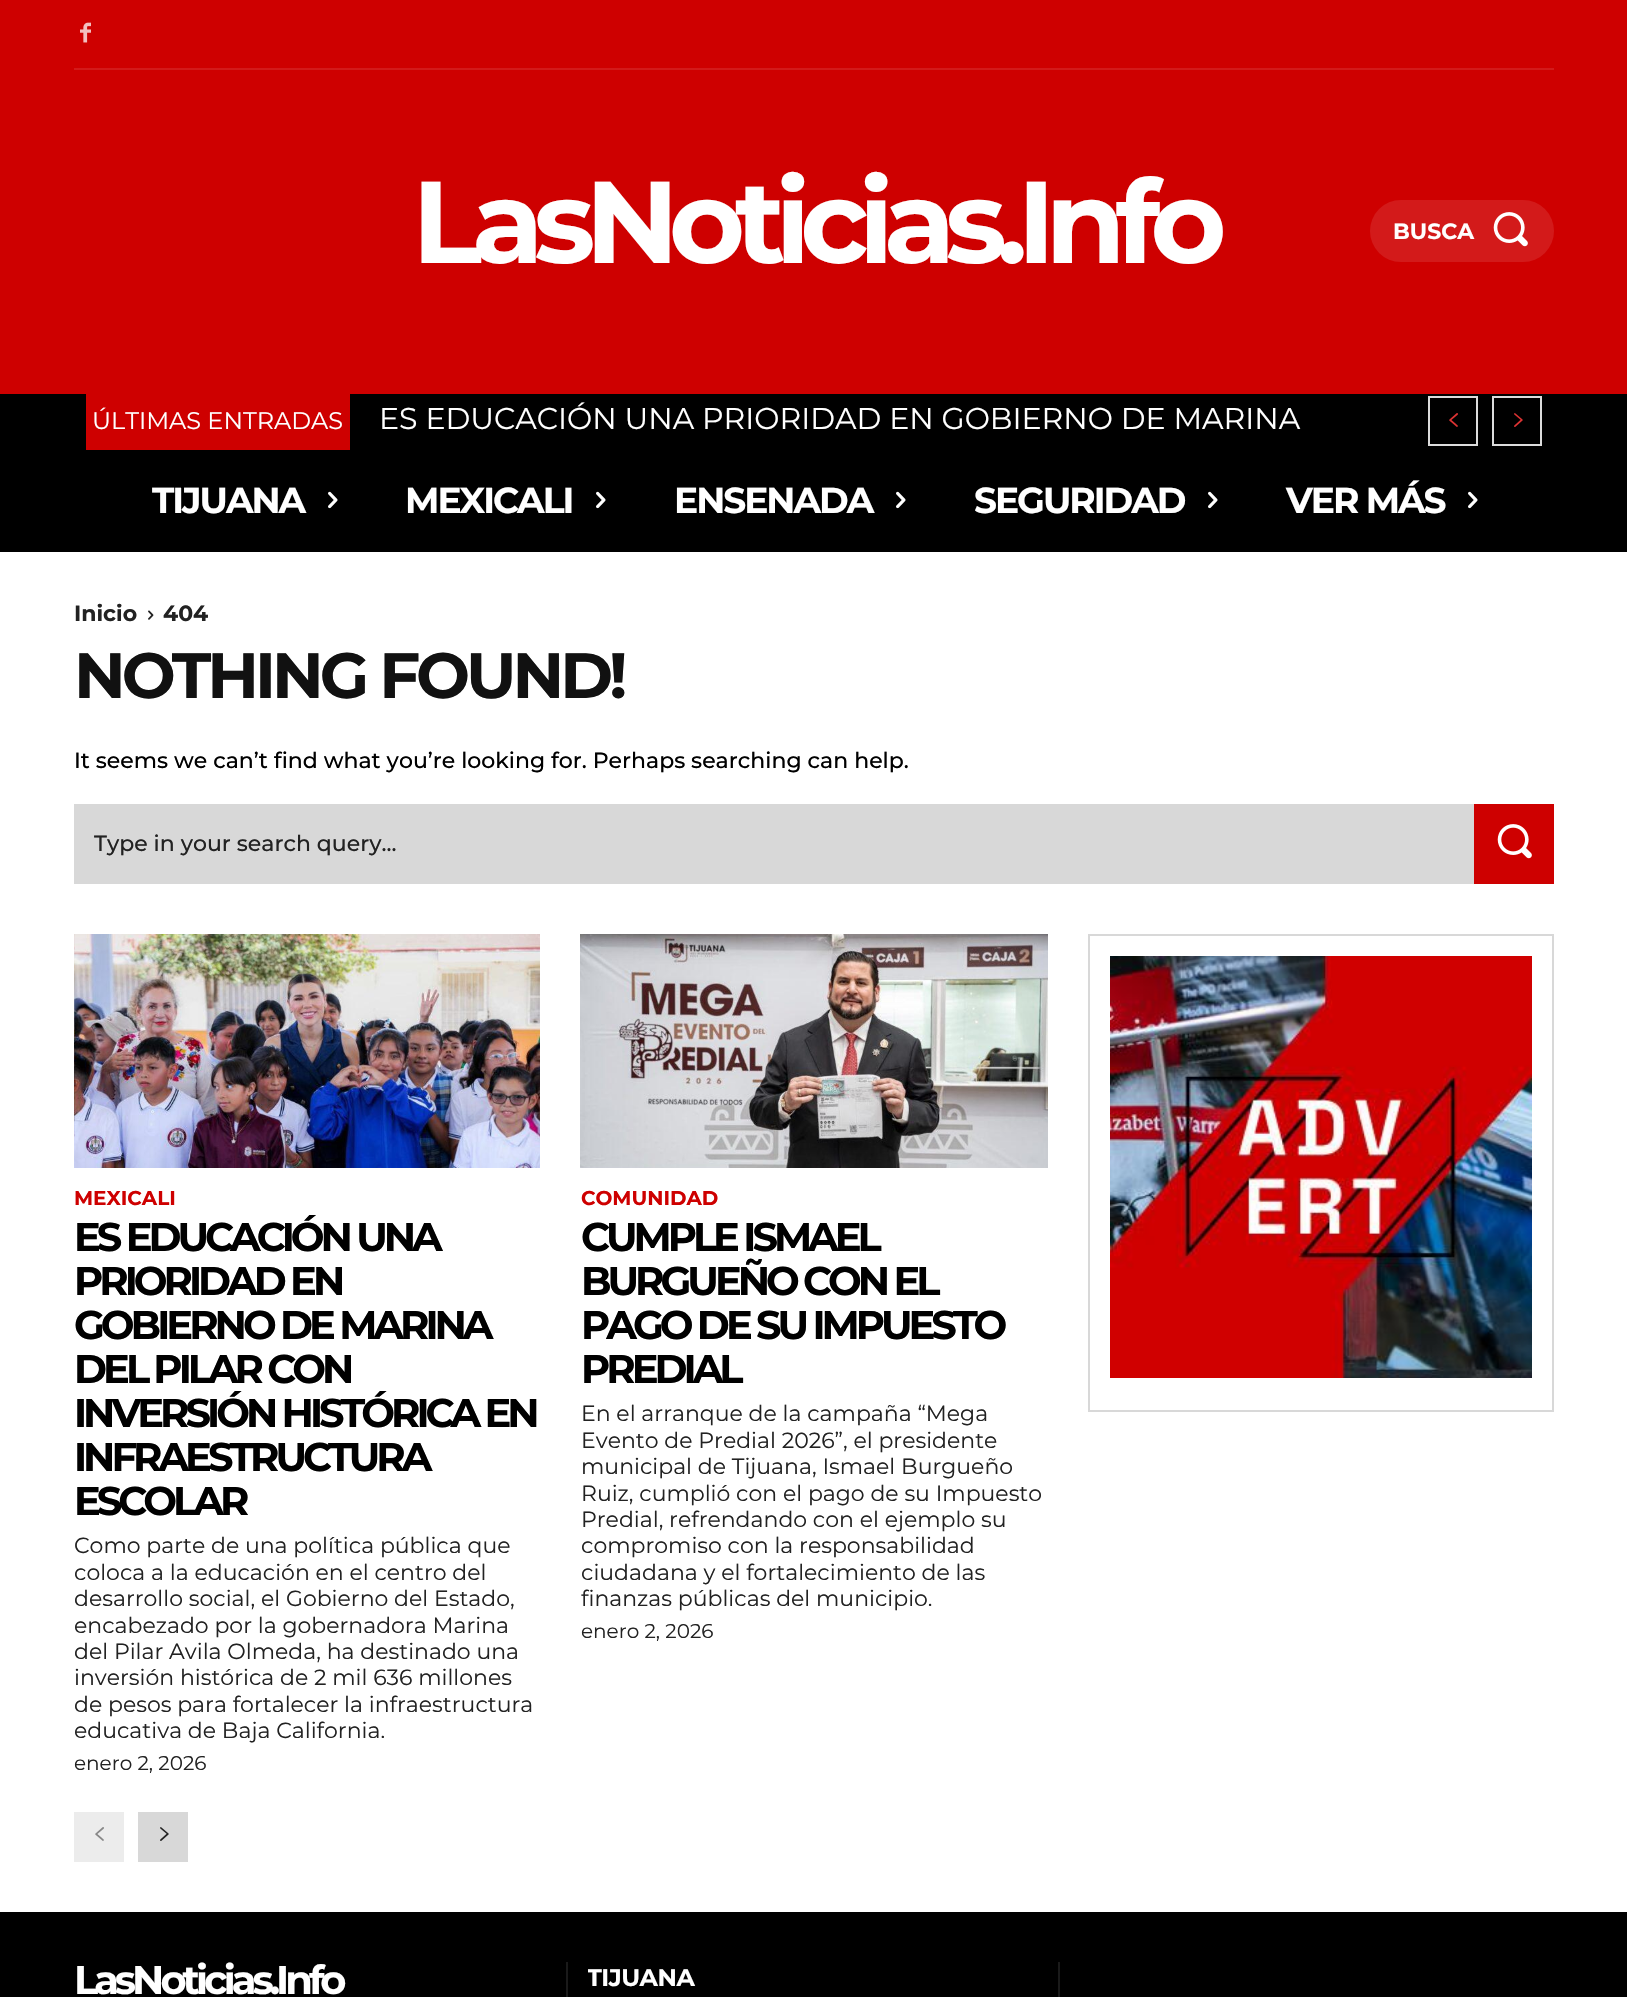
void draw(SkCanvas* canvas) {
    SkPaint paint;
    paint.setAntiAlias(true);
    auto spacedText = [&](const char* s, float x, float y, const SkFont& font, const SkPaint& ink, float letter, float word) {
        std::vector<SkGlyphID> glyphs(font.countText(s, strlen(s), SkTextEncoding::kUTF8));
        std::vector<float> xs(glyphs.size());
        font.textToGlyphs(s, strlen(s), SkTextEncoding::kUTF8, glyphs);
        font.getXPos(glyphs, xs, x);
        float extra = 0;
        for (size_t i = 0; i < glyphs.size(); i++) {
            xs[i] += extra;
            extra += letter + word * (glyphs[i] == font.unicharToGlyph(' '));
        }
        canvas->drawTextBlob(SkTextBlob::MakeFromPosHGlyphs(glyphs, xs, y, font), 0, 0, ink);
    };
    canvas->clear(0xFFFFFFFF);
    paint.setColor(0xFFCE0000);
    canvas->drawRect(SkRect::MakeXYWH(0, 0, 1627, 394), paint);
    paint.setColor(0xFFD31A1A);
    canvas->drawRect(SkRect::MakeXYWH(74, 68, 1480, 2), paint);
    canvas->drawImageRect(SkImages::DeferredFromEncodedData(SkData::MakeFromFileName("img1.png")), SkRect::MakeXYWH(80, 22, 11, 21), SkSamplingOptions());
    SkFont font1(fontMgr->matchFamilyStyle("Montserrat", SkFontStyle::Bold()), 116);
    font1.setSubpixel(true);
    paint.setColor(0xFFFFFFFF);
    spacedText("LasNoticias.Info", 412, 263, font1, paint, -10, 0);
    paint.setColor(0xFFD31A1A);
    canvas->drawRoundRect(SkRect::MakeXYWH(1370, 200, 184, 62), 31, 31, paint);
    SkFont font2(fontMgr->matchFamilyStyle("Montserrat", SkFontStyle::Bold()), 22);
    font2.setSubpixel(true);
    paint.setColor(0xFFFFFFFF);
    canvas->drawString("BUSCA", 1393, 239, font2, paint);
    canvas->drawImageRect(SkImages::DeferredFromEncodedData(SkData::MakeFromFileName("img2.png")), SkRect::MakeXYWH(1493, 212, 35, 35), SkSamplingOptions());
    paint.setColor(0xFF000000);
    canvas->drawRect(SkRect::MakeXYWH(0, 394, 1627, 158), paint);
    paint.setColor(0xFFCE0000);
    canvas->drawRect(SkRect::MakeXYWH(86, 394, 264, 56), paint);
    SkFont font3(fontMgr->matchFamilyStyle("Montserrat", SkFontStyle::Normal()), 24);
    font3.setSubpixel(true);
    paint.setColor(0xFFFFFFFF);
    canvas->drawString("ÚLTIMAS ENTRADAS", 92, 429, font3, paint);
    SkFont font4(fontMgr->matchFamilyStyle("Montserrat", SkFontStyle::Normal()), 30);
    font4.setSubpixel(true);
    canvas->drawString("ES EDUCACIÓN UNA PRIORIDAD EN GOBIERNO DE MARINA", 379, 429, font4, paint);
    paint.setStyle(SkPaint::kStroke_Style);
    paint.setStrokeWidth(2);
    paint.setColor(0xFFDCDCDC);
    canvas->drawRect(SkRect::MakeXYWH(1429, 397, 48, 48), paint);
    canvas->drawImageRect(SkImages::DeferredFromEncodedData(SkData::MakeFromFileName("img3.png")), SkRect::MakeXYWH(1449, 413, 9, 14), SkSamplingOptions());
    canvas->drawRect(SkRect::MakeXYWH(1493, 397, 48, 48), paint);
    canvas->drawImageRect(SkImages::DeferredFromEncodedData(SkData::MakeFromFileName("img4.png")), SkRect::MakeXYWH(1514, 413, 9, 14), SkSamplingOptions());
    SkFont font5(fontMgr->matchFamilyStyle("Montserrat", SkFontStyle::Bold()), 36);
    font5.setSubpixel(true);
    paint.setStyle(SkPaint::kFill_Style);
    paint.setColor(0xFFFFFFFF);
    spacedText("TIJUANA", 152, 513, font5, paint, -2, 0);
    canvas->drawImageRect(SkImages::DeferredFromEncodedData(SkData::MakeFromFileName("img5.png")), SkRect::MakeXYWH(328, 491, 10, 18), SkSamplingOptions());
    spacedText("MEXICALI", 405, 513, font5, paint, -2, 0);
    canvas->drawImageRect(SkImages::DeferredFromEncodedData(SkData::MakeFromFileName("img5.png")), SkRect::MakeXYWH(596, 491, 10, 18), SkSamplingOptions());
    spacedText("ENSENADA", 674, 513, font5, paint, -2, 0);
    canvas->drawImageRect(SkImages::DeferredFromEncodedData(SkData::MakeFromFileName("img5.png")), SkRect::MakeXYWH(896, 491, 10, 18), SkSamplingOptions());
    spacedText("SEGURIDAD", 974, 513, font5, paint, -2, 0);
    canvas->drawImageRect(SkImages::DeferredFromEncodedData(SkData::MakeFromFileName("img5.png")), SkRect::MakeXYWH(1208, 491, 10, 18), SkSamplingOptions());
    spacedText("VER MÁS", 1286, 513, font5, paint, -2, 0);
    canvas->drawImageRect(SkImages::DeferredFromEncodedData(SkData::MakeFromFileName("img5.png")), SkRect::MakeXYWH(1468, 491, 10, 18), SkSamplingOptions());
    paint.setColor(0xFF222222);
    canvas->drawString("Inicio", 74, 621, font2, paint);
    canvas->drawImageRect(SkImages::DeferredFromEncodedData(SkData::MakeFromFileName("img6.png")), SkRect::MakeXYWH(148, 610, 6, 10), SkSamplingOptions());
    canvas->drawString("404", 163, 621, font2, paint);
    SkFont font6(fontMgr->matchFamilyStyle("Montserrat", SkFontStyle::Bold()), 64);
    font6.setSubpixel(true);
    paint.setColor(0xFF111111);
    spacedText("NOTHING FOUND!", 74, 698, font6, paint, -4, 0);
    SkFont font7(fontMgr->matchFamilyStyle("Montserrat", SkFontStyle(500, SkFontStyle::kNormal_Width, SkFontStyle::kUpright_Slant)), 22);
    font7.setSubpixel(true);
    paint.setColor(0xFF000000);
    canvas->drawString("It seems we can’t find what you’re looking for. Perhaps searching can help.", 74, 768, font7, paint);
    paint.setColor(0xFFD8D8D8);
    canvas->drawRect(SkRect::MakeXYWH(74, 804, 1400, 80), paint);
    paint.setColor(0xFF222222);
    canvas->drawString("Type in your search query...", 94, 851, font7, paint);
    paint.setColor(0xFFCE0000);
    canvas->drawRect(SkRect::MakeXYWH(1474, 804, 80, 80), paint);
    canvas->drawImageRect(SkImages::DeferredFromEncodedData(SkData::MakeFromFileName("img7.png")), SkRect::MakeXYWH(1497, 824, 35, 35), SkSamplingOptions());
    canvas->drawImageRect(SkImages::DeferredFromEncodedData(SkData::MakeFromFileName("img8.png")), SkRect::MakeXYWH(74, 934, 466, 234), SkSamplingOptions());
    SkFont font8(fontMgr->matchFamilyStyle("Montserrat", SkFontStyle::Bold()), 20);
    font8.setSubpixel(true);
    canvas->drawString("MEXICALI", 74, 1205, font8, paint);
    SkFont font9(fontMgr->matchFamilyStyle("Montserrat", SkFontStyle::Bold()), 40);
    font9.setSubpixel(true);
    paint.setColor(0xFF000000);
    spacedText("ES EDUCACIÓN UNA", 74, 1251, font9, paint, -4, 0);
    spacedText("PRIORIDAD EN", 74, 1295, font9, paint, -4, 0);
    spacedText("GOBIERNO DE MARINA", 74, 1339, font9, paint, -4, 0);
    spacedText("DEL PILAR CON", 74, 1383, font9, paint, -4, 0);
    spacedText("INVERSIÓN HISTÓRICA EN", 74, 1427, font9, paint, -4, 0);
    spacedText("INFRAESTRUCTURA", 74, 1471, font9, paint, -4, 0);
    spacedText("ESCOLAR", 74, 1515, font9, paint, -4, 0);
    SkFont font10(fontMgr->matchFamilyStyle("Montserrat", SkFontStyle::Normal()), 22);
    font10.setSubpixel(true);
    paint.setColor(0xFF222222);
    canvas->drawString("Como parte de una política pública que", 74, 1553, font10, paint);
    canvas->drawString("coloca a la educación en el centro del", 74, 1580, font10, paint);
    canvas->drawString("desarrollo social, el Gobierno del Estado,", 74, 1606, font10, paint);
    canvas->drawString("encabezado por la gobernadora Marina", 74, 1633, font10, paint);
    canvas->drawString("del Pilar Avila Olmeda, ha destinado una", 74, 1659, font10, paint);
    canvas->drawString("inversión histórica de 2 mil 636 millones", 74, 1685, font10, paint);
    canvas->drawString("de pesos para fortalecer la infraestructura", 74, 1712, font10, paint);
    canvas->drawString("educativa de Baja California.", 74, 1738, font10, paint);
    SkFont font11(fontMgr->matchFamilyStyle("Montserrat", SkFontStyle::Normal()), 20);
    font11.setSubpixel(true);
    canvas->drawString("enero 2, 2026", 74, 1770, font11, paint);
    canvas->drawImageRect(SkImages::DeferredFromEncodedData(SkData::MakeFromFileName("img9.png")), SkRect::MakeXYWH(580, 934, 468, 234), SkSamplingOptions());
    paint.setColor(0xFFCE0000);
    canvas->drawString("COMUNIDAD", 581, 1205, font8, paint);
    paint.setColor(0xFF000000);
    spacedText("CUMPLE ISMAEL", 581, 1251, font9, paint, -4, 0);
    spacedText("BURGUEÑO CON EL", 581, 1295, font9, paint, -4, 0);
    spacedText("PAGO DE SU IMPUESTO", 581, 1339, font9, paint, -4, 0);
    spacedText("PREDIAL", 581, 1383, font9, paint, -4, 0);
    paint.setColor(0xFF222222);
    canvas->drawString("En el arranque de la campaña “Mega", 581, 1421, font10, paint);
    canvas->drawString("Evento de Predial 2026”, el presidente", 581, 1448, font10, paint);
    canvas->drawString("municipal de Tijuana, Ismael Burgueño", 581, 1474, font10, paint);
    canvas->drawString("Ruiz, cumplió con el pago de su Impuesto", 581, 1501, font10, paint);
    canvas->drawString("Predial, refrendando con el ejemplo su", 581, 1527, font10, paint);
    canvas->drawString("compromiso con la responsabilidad", 581, 1553, font10, paint);
    canvas->drawString("ciudadana y el fortalecimiento de las", 581, 1580, font10, paint);
    canvas->drawString("finanzas públicas del municipio.", 581, 1606, font10, paint);
    canvas->drawString("enero 2, 2026", 581, 1638, font11, paint);
    paint.setColor(0xFFECECEC);
    canvas->drawRect(SkRect::MakeXYWH(74, 1812, 50, 50), paint);
    canvas->drawImageRect(SkImages::DeferredFromEncodedData(SkData::MakeFromFileName("img10.png")), SkRect::MakeXYWH(95, 1827, 9, 14), SkSamplingOptions());
    paint.setColor(0xFFD8D8D8);
    canvas->drawRect(SkRect::MakeXYWH(138, 1812, 50, 50), paint);
    canvas->drawImageRect(SkImages::DeferredFromEncodedData(SkData::MakeFromFileName("img11.png")), SkRect::MakeXYWH(160, 1827, 9, 14), SkSamplingOptions());
    paint.setStyle(SkPaint::kStroke_Style);
    canvas->drawRect(SkRect::MakeXYWH(1089, 935, 464, 476), paint);
    canvas->drawImageRect(SkImages::DeferredFromEncodedData(SkData::MakeFromFileName("img12.png")), SkRect::MakeXYWH(1110, 956, 422, 422), SkSamplingOptions());
    paint.setStyle(SkPaint::kFill_Style);
    paint.setColor(0xFF000000);
    canvas->drawRect(SkRect::MakeXYWH(0, 1912, 1627, 85), paint);
    paint.setColor(0xFF1A1A1A);
    canvas->drawRect(SkRect::MakeXYWH(566, 1962, 2, 35), paint);
    paint.setColor(0xFFFFFFFF);
    spacedText("LasNoticias.Info", 74, 1994, font9, paint, -4, 0);
    paint.setColor(0xFF1A1A1A);
    canvas->drawRect(SkRect::MakeXYWH(1058, 1962, 2, 35), paint);
    canvas->save();
    canvas->clipRect(SkRect::MakeXYWH(588, 1962, 450, 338));
    SkFont font12(fontMgr->matchFamilyStyle("Montserrat", SkFontStyle::Bold()), 24);
    font12.setSubpixel(true);
    paint.setColor(0xFFFFFFFF);
    spacedText("TIJUANA", 587, 1986, font12, paint, -0.5f, 0);
    canvas->restore();
}
